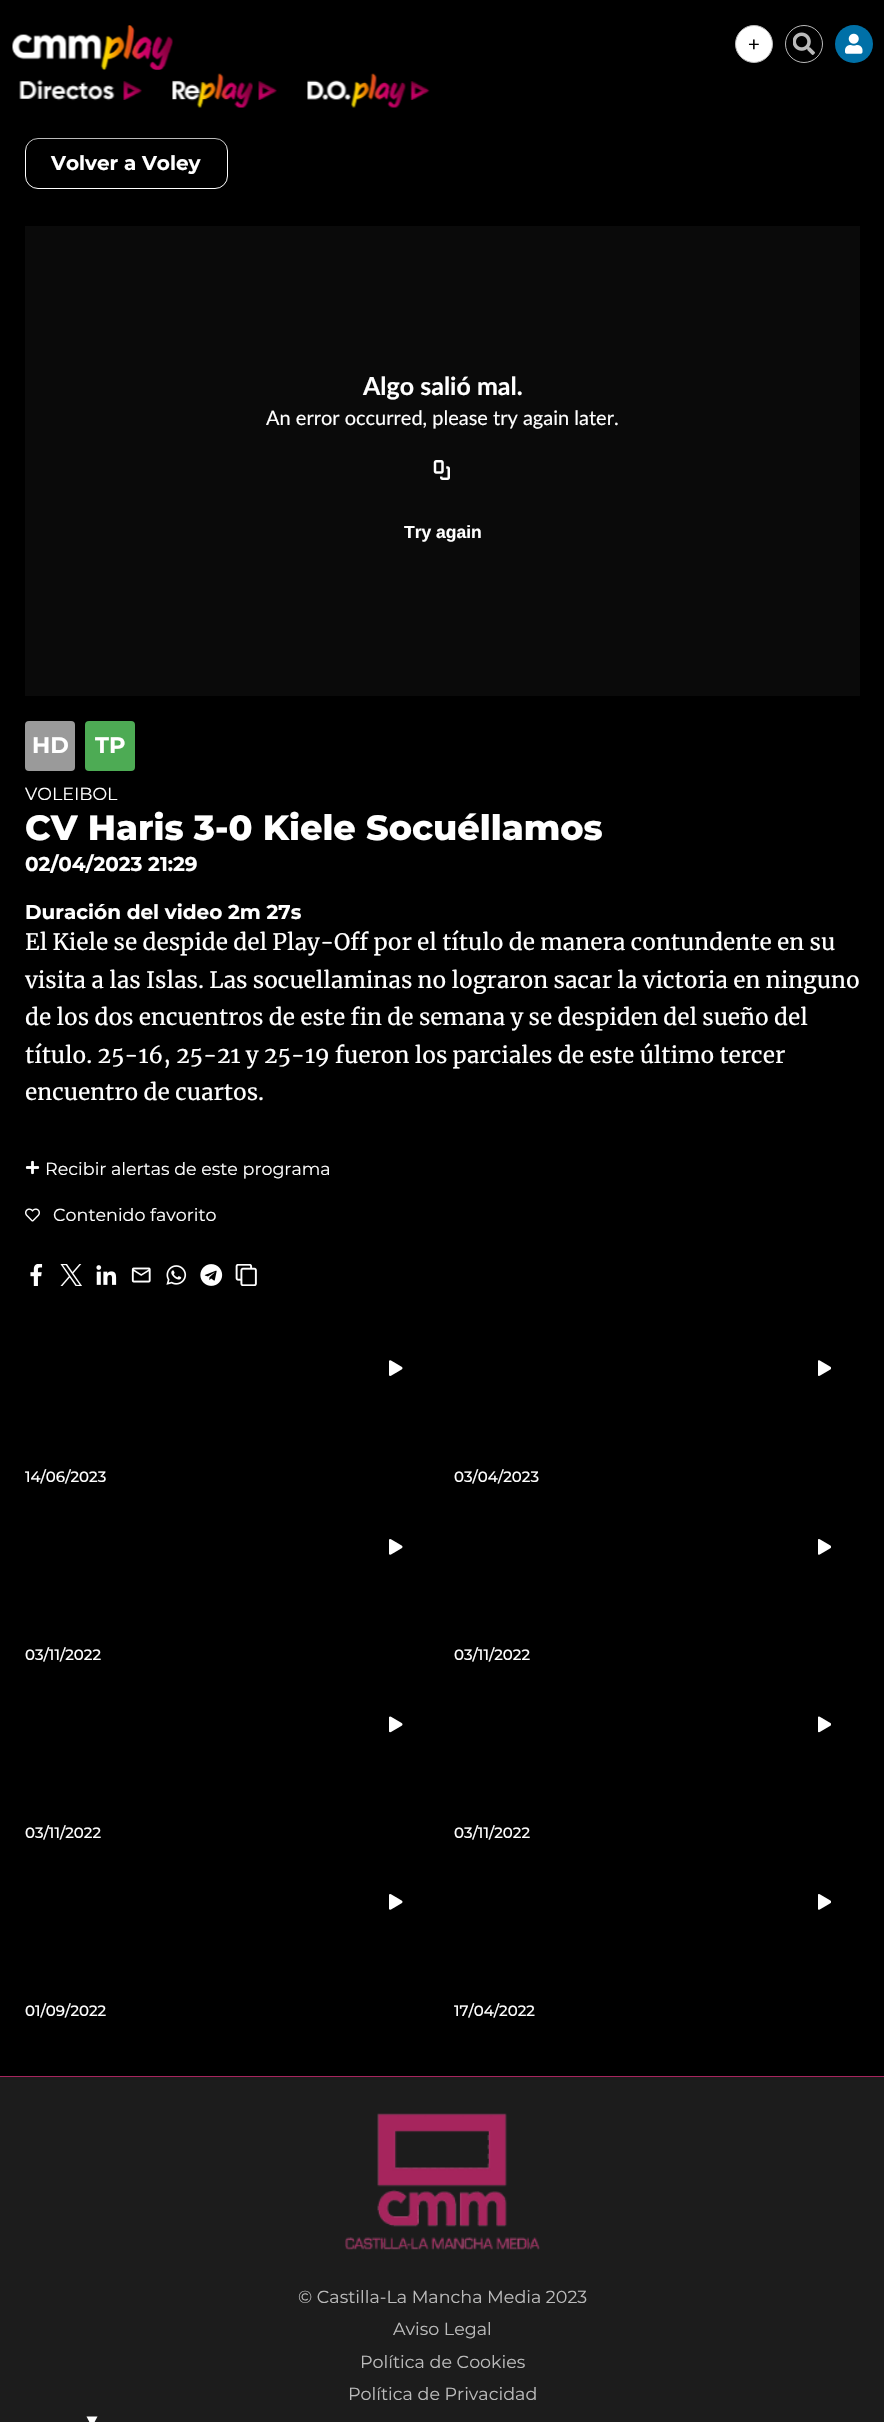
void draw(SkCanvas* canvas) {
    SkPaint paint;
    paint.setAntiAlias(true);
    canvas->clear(0xFF000000);
    paint.setStyle(SkPaint::kStroke_Style);
    paint.setStrokeWidth(1);
    paint.setColor(0xFFFFFFFF);
    canvas->drawRoundRect(SkRect::MakeXYWH(25.5f, 138.5f, 202, 50), 12.5f, 12.5f, paint);
    paint.setStyle(SkPaint::kFill_Style);
    {
        const SkColor colors[] = {0x00000000, 0xE8000000, 0xFF000000};
        const float stops[] = {0, 0.28f, 1};
        const SkPoint ends[] = {{443, 151}, {443, 0}};
        paint.setShader(SkGradientShader::MakeLinear(ends, colors, stops, 3, SkTileMode::kClamp));
        paint.setAlpha(255);
    }
    canvas->drawRect(SkRect::MakeXYWH(25, 138, 203, 12), paint);
    canvas->drawImageRect(SkImages::DeferredFromEncodedData(SkData::MakeFromFileName("img1.png")), SkRect::MakeXYWH(12, 25, 161, 45), SkSamplingOptions());
    paint.setShader(nullptr);
    paint.setColor(0xFFFFFFFF);
    canvas->drawCircle(754, 44, 18.5f, paint);
    paint.setStyle(SkPaint::kStroke_Style);
    paint.setColor(0xFFBABABA);
    canvas->drawCircle(754, 44, 18.5f, paint);
    SkFont font1(fontMgr->matchFamilyStyle("Liberation Sans", SkFontStyle::Normal()), 20);
    font1.setSubpixel(true);
    paint.setStyle(SkPaint::kFill_Style);
    paint.setColor(0xFF000000);
    canvas->drawString("+", 748, 51, font1, paint);
    paint.setStyle(SkPaint::kStroke_Style);
    paint.setColor(0xFFBABABA);
    canvas->drawCircle(804, 44, 18.5f, paint);
    canvas->drawImageRect(SkImages::DeferredFromEncodedData(SkData::MakeFromFileName("img2.png")), SkRect::MakeXYWH(793, 32, 22, 23), SkSamplingOptions());
    paint.setStyle(SkPaint::kFill_Style);
    paint.setColor(0xFF0070A7);
    canvas->drawCircle(854, 44, 19, paint);
    canvas->drawImageRect(SkImages::DeferredFromEncodedData(SkData::MakeFromFileName("img3.png")), SkRect::MakeXYWH(845, 33, 18, 21), SkSamplingOptions());
    canvas->drawImageRect(SkImages::DeferredFromEncodedData(SkData::MakeFromFileName("img4.png")), SkRect::MakeXYWH(19, 79, 96, 22), SkSamplingOptions());
    canvas->drawImageRect(SkImages::DeferredFromEncodedData(SkData::MakeFromFileName("img5.png")), SkRect::MakeXYWH(123, 81, 19, 19), SkSamplingOptions());
    canvas->drawImageRect(SkImages::DeferredFromEncodedData(SkData::MakeFromFileName("img6.png")), SkRect::MakeXYWH(172, 73, 81, 35), SkSamplingOptions());
    canvas->drawImageRect(SkImages::DeferredFromEncodedData(SkData::MakeFromFileName("img5.png")), SkRect::MakeXYWH(258, 81, 19, 19), SkSamplingOptions());
    canvas->drawImageRect(SkImages::DeferredFromEncodedData(SkData::MakeFromFileName("img7.png")), SkRect::MakeXYWH(307, 73, 99, 35), SkSamplingOptions());
    canvas->drawImageRect(SkImages::DeferredFromEncodedData(SkData::MakeFromFileName("img8.png")), SkRect::MakeXYWH(410, 81, 20, 19), SkSamplingOptions());
    SkFont font2(fontMgr->matchFamilyStyle("Montserrat", SkFontStyle::Bold()), 20);
    font2.setSubpixel(true);
    paint.setColor(0xFFFFFFFF);
    canvas->drawString("Volver a Voley", 51, 170, font2, paint);
    paint.setColor(0xFF0A0A0A);
    canvas->drawRect(SkRect::MakeXYWH(25, 226, 835, 470), paint);
    SkFont font3(fontMgr->matchFamilyStyle("Lato", SkFontStyle::Bold()), 25);
    font3.setSubpixel(true);
    paint.setColor(0xFFFFFFFF);
    canvas->drawString("Algo salió mal.", 363, 395, font3, paint);
    SkFont font4(fontMgr->matchFamilyStyle("Lato", SkFontStyle::Normal()), 20);
    font4.setSubpixel(true);
    canvas->drawString("An error occurred, please try again later.", 266, 425, font4, paint);
    canvas->drawImageRect(SkImages::DeferredFromEncodedData(SkData::MakeFromFileName("img9.png")), SkRect::MakeXYWH(433, 460, 17, 20), SkSamplingOptions());
    SkFont font5(fontMgr->matchFamilyStyle("Liberation Sans", SkFontStyle::Bold()), 17.5f);
    font5.setSubpixel(true);
    canvas->drawString("Try again", 404, 538, font5, paint);
    paint.setColor(0xFF9A9A9A);
    canvas->drawRoundRect(SkRect::MakeXYWH(25, 721, 50, 50), 4, 4, paint);
    SkFont font6(fontMgr->matchFamilyStyle("Montserrat", SkFontStyle::Bold()), 22.5f);
    font6.setSubpixel(true);
    paint.setColor(0xFFFFFFFF);
    canvas->drawString("HD", 32, 753, font6, paint);
    paint.setColor(0xFF4DAB54);
    canvas->drawRoundRect(SkRect::MakeXYWH(85, 721, 50, 50), 4, 4, paint);
    paint.setColor(0xFFFFFFFF);
    canvas->drawString("TP", 95, 753, font6, paint);
    SkFont font7(fontMgr->matchFamilyStyle("Montserrat", SkFontStyle::Normal()), 17.5f);
    font7.setSubpixel(true);
    canvas->drawString("VOLEIBOL", 25, 800, font7, paint);
    SkFont font8(fontMgr->matchFamilyStyle("Montserrat", SkFontStyle(800, SkFontStyle::kNormal_Width, SkFontStyle::kUpright_Slant)), 35);
    font8.setSubpixel(true);
    canvas->drawString("CV Haris 3-0 Kiele Socuéllamos", 25, 840, font8, paint);
    canvas->drawString("02/04/2023 21:29", 25, 871, font2, paint);
    canvas->drawString("Duración del video", 25, 919, font2, paint);
    canvas->drawString("2m 27s", 228, 919, font2, paint);
    SkFont font9(fontMgr->matchFamilyStyle("Merriweather", SkFontStyle::Normal()), 22.5f);
    font9.setSubpixel(true);
    canvas->drawString("El Kiele se despide del Play-Off por el título de manera contundente en su", 25, 950, font9, paint);
    canvas->drawString("visita a las Islas. Las socuellaminas no lograron sacar la victoria en ninguno", 25, 988, font9, paint);
    canvas->drawString("de los dos encuentros de este fin de semana y se despiden del sueño del", 25, 1025, font9, paint);
    canvas->drawString("título. 25-16, 25-21 y 25-19 fueron los parciales de este último tercer", 25, 1063, font9, paint);
    canvas->drawString("encuentro de cuartos.", 25, 1100, font9, paint);
    canvas->drawImageRect(SkImages::DeferredFromEncodedData(SkData::MakeFromFileName("img10.png")), SkRect::MakeXYWH(25, 1160, 15, 15), SkSamplingOptions());
    canvas->drawString("Recibir alertas de este programa", 45, 1175, font7, paint);
    canvas->drawImageRect(SkImages::DeferredFromEncodedData(SkData::MakeFromFileName("img11.png")), SkRect::MakeXYWH(25, 1208, 15, 14), SkSamplingOptions());
    canvas->drawString("Contenido favorito", 53, 1221, font7, paint);
    canvas->drawImageRect(SkImages::DeferredFromEncodedData(SkData::MakeFromFileName("img12.png")), SkRect::MakeXYWH(30, 1264, 13, 22), SkSamplingOptions());
    canvas->drawImageRect(SkImages::DeferredFromEncodedData(SkData::MakeFromFileName("img13.png")), SkRect::MakeXYWH(60, 1264, 22, 22), SkSamplingOptions());
    canvas->drawImageRect(SkImages::DeferredFromEncodedData(SkData::MakeFromFileName("img14.png")), SkRect::MakeXYWH(96, 1265, 21, 20), SkSamplingOptions());
    canvas->drawImageRect(SkImages::DeferredFromEncodedData(SkData::MakeFromFileName("img15.png")), SkRect::MakeXYWH(131, 1267, 20, 16), SkSamplingOptions());
    canvas->drawImageRect(SkImages::DeferredFromEncodedData(SkData::MakeFromFileName("img16.png")), SkRect::MakeXYWH(166, 1265, 21, 20), SkSamplingOptions());
    canvas->drawImageRect(SkImages::DeferredFromEncodedData(SkData::MakeFromFileName("img17.png")), SkRect::MakeXYWH(200, 1264, 23, 22), SkSamplingOptions());
    canvas->drawImageRect(SkImages::DeferredFromEncodedData(SkData::MakeFromFileName("img18.png")), SkRect::MakeXYWH(235, 1264, 22, 22), SkSamplingOptions());
    canvas->drawImageRect(SkImages::DeferredFromEncodedData(SkData::MakeFromFileName("img19.png")), SkRect::MakeXYWH(389, 1360, 14, 16), SkSamplingOptions());
    SkFont font10(fontMgr->matchFamilyStyle("Montserrat", SkFontStyle(500, SkFontStyle::kNormal_Width, SkFontStyle::kUpright_Slant)), 15);
    font10.setSubpixel(true);
    canvas->drawString("14/06/2023", 25, 1482, font10, paint);
    canvas->drawImageRect(SkImages::DeferredFromEncodedData(SkData::MakeFromFileName("img20.png")), SkRect::MakeXYWH(818, 1360, 13, 16), SkSamplingOptions());
    canvas->drawString("03/04/2023", 454, 1482, font10, paint);
    canvas->drawImageRect(SkImages::DeferredFromEncodedData(SkData::MakeFromFileName("img21.png")), SkRect::MakeXYWH(389, 1539, 14, 16), SkSamplingOptions());
    canvas->drawString("03/11/2022", 25, 1660, font10, paint);
    canvas->drawImageRect(SkImages::DeferredFromEncodedData(SkData::MakeFromFileName("img22.png")), SkRect::MakeXYWH(818, 1539, 13, 16), SkSamplingOptions());
    canvas->drawString("03/11/2022", 454, 1660, font10, paint);
    canvas->drawImageRect(SkImages::DeferredFromEncodedData(SkData::MakeFromFileName("img23.png")), SkRect::MakeXYWH(389, 1716, 14, 17), SkSamplingOptions());
    canvas->drawString("03/11/2022", 25, 1838, font10, paint);
    canvas->drawImageRect(SkImages::DeferredFromEncodedData(SkData::MakeFromFileName("img24.png")), SkRect::MakeXYWH(818, 1716, 13, 17), SkSamplingOptions());
    canvas->drawString("03/11/2022", 454, 1838, font10, paint);
    canvas->drawImageRect(SkImages::DeferredFromEncodedData(SkData::MakeFromFileName("img21.png")), SkRect::MakeXYWH(389, 1894, 14, 16), SkSamplingOptions());
    canvas->drawString("01/09/2022", 25, 2016, font10, paint);
    canvas->drawImageRect(SkImages::DeferredFromEncodedData(SkData::MakeFromFileName("img22.png")), SkRect::MakeXYWH(818, 1894, 13, 16), SkSamplingOptions());
    canvas->drawString("17/04/2022", 454, 2016, font10, paint);
    paint.setColor(0xFF1C1C1C);
    canvas->drawRect(SkRect::MakeXYWH(0, 2077, 884, 345), paint);
    paint.setColor(0xFFA6255E);
    canvas->drawRect(SkRect::MakeXYWH(0, 2076, 884, 1), paint);
    canvas->drawImageRect(SkImages::DeferredFromEncodedData(SkData::MakeFromFileName("img25.png")), SkRect::MakeXYWH(345, 2113, 195, 137), SkSamplingOptions());
    paint.setColor(0xFFBBBBBB);
    canvas->drawString("© Castilla-La Mancha Media 2023", 298, 2303, font7, paint);
    canvas->drawString("Aviso Legal", 393, 2335, font7, paint);
    canvas->drawString("Política de Cookies", 360, 2368, font7, paint);
    canvas->drawString("Política de Privacidad", 348, 2400, font7, paint);
    paint.setColor(0xFFFFFFFF);
    canvas->drawPath(SkPathBuilder().moveTo(97.5f, 2416.5f).lineTo(92.5f, 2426).lineTo(91.5f, 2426).lineTo(86.5f, 2416.5f).close().detach(), paint);
}
